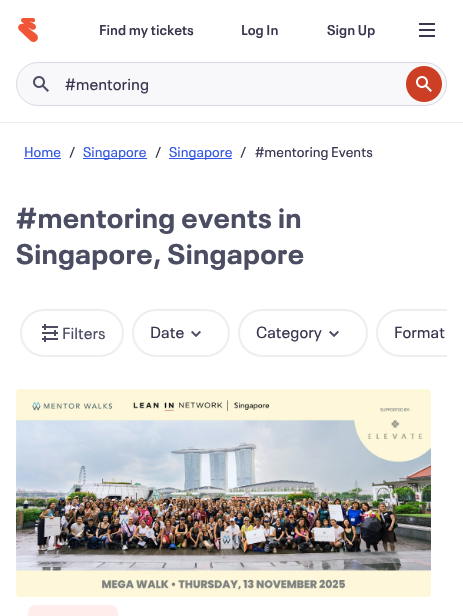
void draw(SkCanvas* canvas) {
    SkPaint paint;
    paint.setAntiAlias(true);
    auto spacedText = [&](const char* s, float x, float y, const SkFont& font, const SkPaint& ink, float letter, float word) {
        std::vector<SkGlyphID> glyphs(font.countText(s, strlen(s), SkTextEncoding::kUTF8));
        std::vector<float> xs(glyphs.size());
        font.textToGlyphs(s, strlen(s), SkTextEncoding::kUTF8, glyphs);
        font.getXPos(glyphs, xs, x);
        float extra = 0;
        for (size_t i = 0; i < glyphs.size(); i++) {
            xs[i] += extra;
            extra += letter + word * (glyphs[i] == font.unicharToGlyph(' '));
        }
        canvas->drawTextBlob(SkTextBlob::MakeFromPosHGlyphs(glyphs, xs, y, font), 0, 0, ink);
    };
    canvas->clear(0xFFFFFFFF);
    paint.setColor(0xFFEEEDF2);
    canvas->drawRect(SkRect::MakeXYWH(0, 122, 463, 1), paint);
    canvas->drawImageRect(SkImages::DeferredFromEncodedData(SkData::MakeFromFileName("img1.png")), SkRect::MakeXYWH(18, 18, 20, 24), SkSamplingOptions());
    SkFont font1(fontMgr->matchFamilyStyle("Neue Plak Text", SkFontStyle(600, SkFontStyle::kNormal_Width, SkFontStyle::kUpright_Slant)), 14);
    font1.setSubpixel(true);
    paint.setColor(0xFF39364F);
    canvas->drawString("Find my tickets", 99, 35, font1, paint);
    canvas->drawString("Log In", 241, 35, font1, paint);
    canvas->drawString("Sign Up", 327, 35, font1, paint);
    canvas->drawImageRect(SkImages::DeferredFromEncodedData(SkData::MakeFromFileName("img2.png")), SkRect::MakeXYWH(419, 23, 16, 14), SkSamplingOptions());
    paint.setColor(0xFFF8F7FA);
    canvas->drawRoundRect(SkRect::MakeXYWH(16.5f, 62.5f, 430, 43), 21.5f, 21.5f, paint);
    paint.setStyle(SkPaint::kStroke_Style);
    paint.setStrokeWidth(1);
    paint.setColor(0xFFDBDAE3);
    canvas->drawRoundRect(SkRect::MakeXYWH(16.5f, 62.5f, 430, 43), 21.5f, 21.5f, paint);
    canvas->drawImageRect(SkImages::DeferredFromEncodedData(SkData::MakeFromFileName("img3.png")), SkRect::MakeXYWH(33, 76, 16, 16), SkSamplingOptions());
    SkFont font2(fontMgr->matchFamilyStyle("Neue Plak Text", SkFontStyle::Normal()), 16);
    font2.setSubpixel(true);
    paint.setStyle(SkPaint::kFill_Style);
    paint.setColor(0xFF39364F);
    canvas->drawString("#mentoring", 65, 90, font2, paint);
    canvas->drawImageRect(SkImages::DeferredFromEncodedData(SkData::MakeFromFileName("img4.png")), SkRect::MakeXYWH(406, 66, 36, 36), SkSamplingOptions());
    SkFont font3(fontMgr->matchFamilyStyle("Neue Plak Text", SkFontStyle::Normal()), 14);
    font3.setSubpixel(true);
    paint.setColor(0xFF3659E3);
    canvas->drawString("Home", 24, 157, font3, paint);
    canvas->drawRect(SkRect::MakeXYWH(24, 158, 37, 1), paint);
    paint.setColor(0xFF39364F);
    canvas->drawString("/", 69, 157, font3, paint);
    paint.setColor(0xFF3659E3);
    canvas->drawRect(SkRect::MakeXYWH(83, 158, 64, 1), paint);
    canvas->drawString("Singapore", 83, 157, font3, paint);
    paint.setColor(0xFF39364F);
    canvas->drawString("/", 155, 157, font3, paint);
    paint.setColor(0xFF3659E3);
    canvas->drawRect(SkRect::MakeXYWH(169, 158, 63, 1), paint);
    canvas->drawString("Singapore", 169, 157, font3, paint);
    paint.setColor(0xFF39364F);
    canvas->drawString("/", 240, 157, font3, paint);
    canvas->drawString("#mentoring Events", 255, 157, font3, paint);
    SkFont font4(fontMgr->matchFamilyStyle("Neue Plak", SkFontStyle::Bold()), 28);
    font4.setSubpixel(true);
    paint.setColor(0xFF4B4D63);
    spacedText("#mentoring events in", 16, 228, font4, paint, 0.75f, 0);
    spacedText("Singapore, Singapore", 16, 264, font4, paint, 0.75f, 0);
    paint.setStyle(SkPaint::kStroke_Style);
    paint.setStrokeWidth(2);
    paint.setColor(0xFFEEEDF2);
    canvas->drawRoundRect(SkRect::MakeXYWH(21, 310, 102, 46), 23, 23, paint);
    canvas->drawImageRect(SkImages::DeferredFromEncodedData(SkData::MakeFromFileName("img5.png")), SkRect::MakeXYWH(42, 324, 16, 18), SkSamplingOptions());
    paint.setStyle(SkPaint::kFill_Style);
    paint.setColor(0xFF4B4D63);
    canvas->drawString("Filters", 62, 339, font2, paint);
    paint.setStyle(SkPaint::kStroke_Style);
    paint.setColor(0xFFEEEDF2);
    canvas->drawRoundRect(SkRect::MakeXYWH(133, 310, 96, 46), 23, 23, paint);
    paint.setStyle(SkPaint::kFill_Style);
    paint.setColor(0xFF39364F);
    canvas->drawString("Date", 150, 338, font2, paint);
    canvas->drawImageRect(SkImages::DeferredFromEncodedData(SkData::MakeFromFileName("img6.png")), SkRect::MakeXYWH(191, 330, 10, 7), SkSamplingOptions());
    paint.setStyle(SkPaint::kStroke_Style);
    paint.setColor(0xFFEEEDF2);
    canvas->drawRoundRect(SkRect::MakeXYWH(239, 310, 128, 46), 23, 23, paint);
    paint.setStyle(SkPaint::kFill_Style);
    paint.setColor(0xFF39364F);
    canvas->drawString("Category", 256, 338, font2, paint);
    canvas->drawImageRect(SkImages::DeferredFromEncodedData(SkData::MakeFromFileName("img6.png")), SkRect::MakeXYWH(329, 330, 10, 7), SkSamplingOptions());
    canvas->save();
    canvas->clipRect(SkRect::MakeXYWH(16, 309, 431, 48));
    paint.setStyle(SkPaint::kStroke_Style);
    paint.setColor(0xFFEEEDF2);
    canvas->drawRoundRect(SkRect::MakeXYWH(377, 310, 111, 46), 23, 23, paint);
    canvas->restore();
    paint.setStyle(SkPaint::kFill_Style);
    paint.setColor(0xFF39364F);
    canvas->drawString("Format", 394, 338, font2, paint);
    canvas->drawImageRect(SkImages::DeferredFromEncodedData(SkData::MakeFromFileName("img7.png")), SkRect::MakeXYWH(16, 389, 415, 208), SkSamplingOptions());
    paint.setColor(0xFFFEEDEA);
    canvas->drawRoundRect(SkRect::MakeXYWH(28, 605, 90, 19), 8, 8, paint);
}
